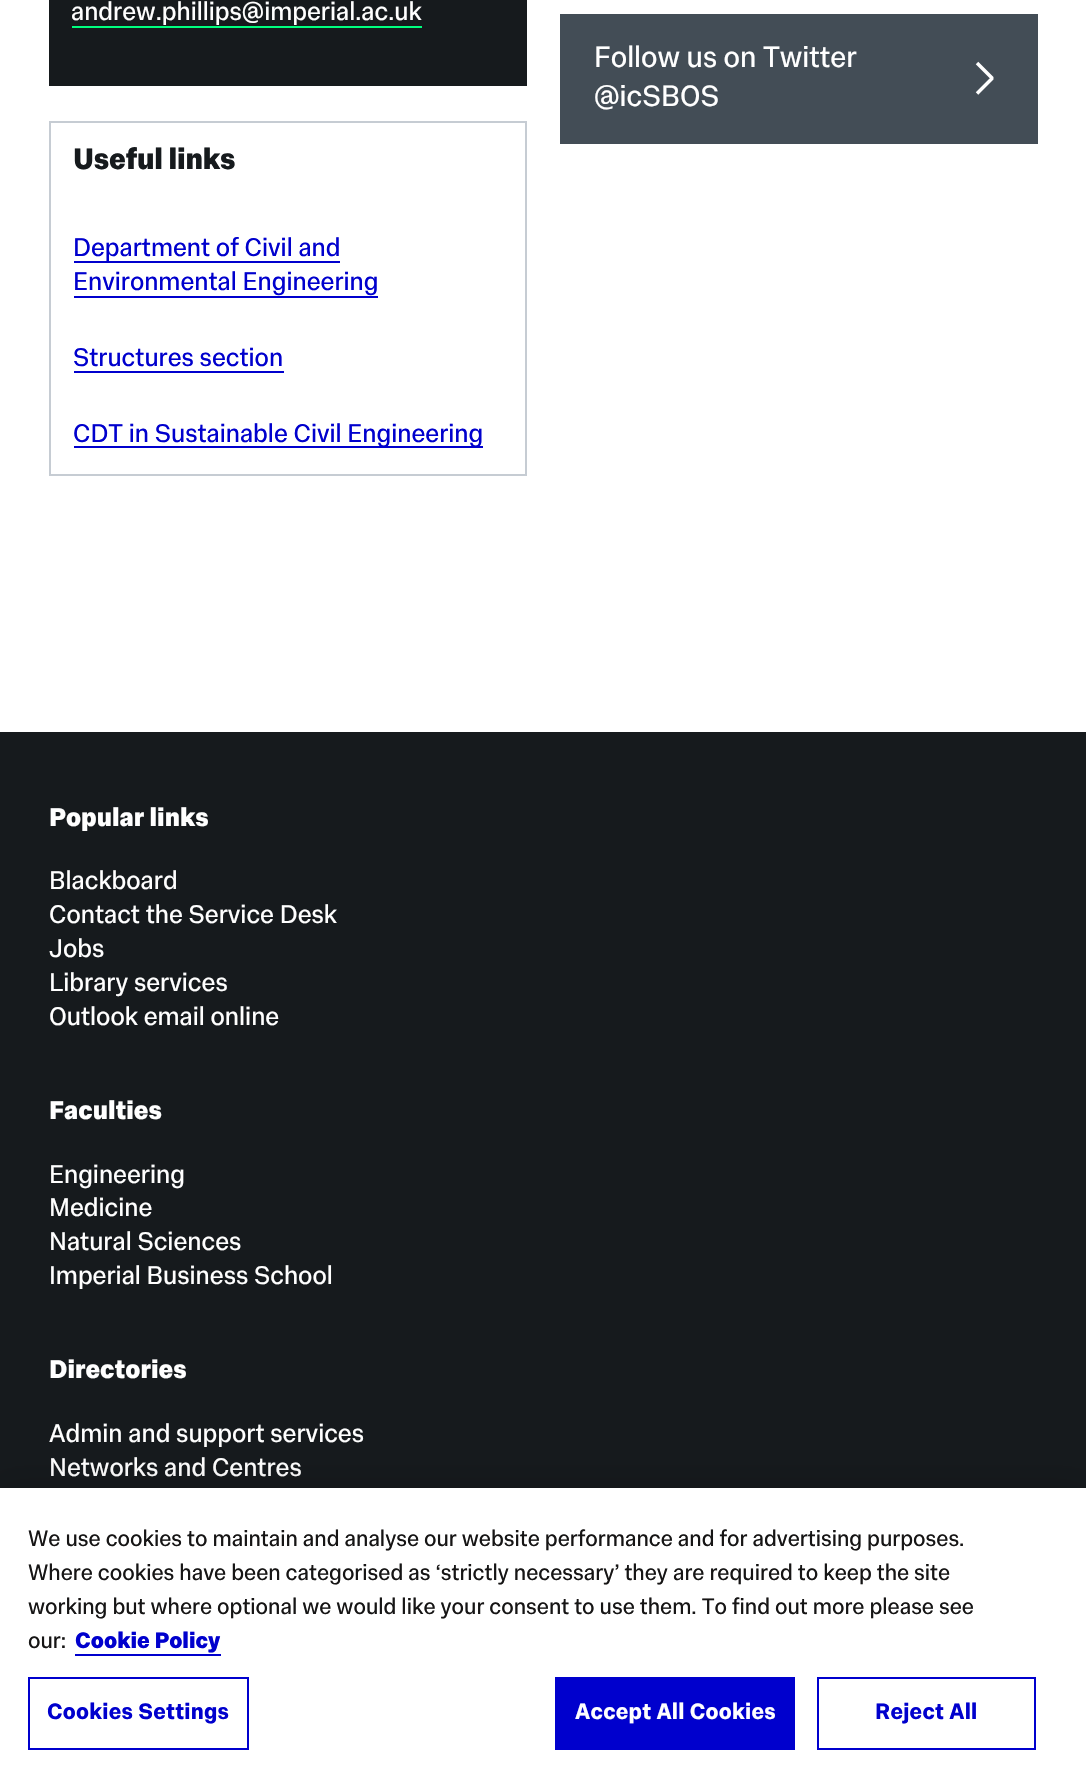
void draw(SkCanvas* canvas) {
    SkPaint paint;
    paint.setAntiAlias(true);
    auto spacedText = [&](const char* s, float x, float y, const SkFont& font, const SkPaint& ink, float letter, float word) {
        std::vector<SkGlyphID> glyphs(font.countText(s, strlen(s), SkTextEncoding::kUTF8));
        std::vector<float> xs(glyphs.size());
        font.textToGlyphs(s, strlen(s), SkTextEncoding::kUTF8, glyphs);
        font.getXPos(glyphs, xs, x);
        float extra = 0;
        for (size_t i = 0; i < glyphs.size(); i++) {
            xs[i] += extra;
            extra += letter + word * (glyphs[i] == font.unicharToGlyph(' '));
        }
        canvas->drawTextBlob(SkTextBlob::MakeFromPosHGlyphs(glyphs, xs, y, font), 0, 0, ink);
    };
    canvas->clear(0xFFFFFFFF);
    paint.setColor(0xFF161A1D);
    canvas->drawRect(SkRect::MakeXYWH(49, 0, 478, 86), paint);
    SkFont font1(fontMgr->matchFamilyStyle("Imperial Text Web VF", SkFontStyle::Normal()), 26.1f);
    font1.setSubpixel(true);
    paint.setColor(0xFFFFFFFF);
    canvas->drawString("andrew.phillips@imperial.ac.uk", 71, 20, font1, paint);
    paint.setColor(0xFF00FF7F);
    canvas->drawRect(SkRect::MakeXYWH(72, 26, 350, 2), paint);
    paint.setColor(0xFF434D56);
    canvas->drawRect(SkRect::MakeXYWH(560, 14, 478, 130), paint);
    SkFont font2(fontMgr->matchFamilyStyle("Imperial Text Web VF", SkFontStyle::Normal()), 30);
    font2.setSubpixel(true);
    paint.setColor(0xFFFFFFFF);
    canvas->drawString("Follow us on Twitter", 594, 67, font2, paint);
    canvas->drawString("@icSBOS", 594, 106, font2, paint);
    canvas->drawImageRect(SkImages::DeferredFromEncodedData(SkData::MakeFromFileName("img1.png")), SkRect::MakeXYWH(975, 61, 19, 34), SkSamplingOptions());
    paint.setStyle(SkPaint::kStroke_Style);
    paint.setStrokeWidth(2);
    paint.setColor(0xFFC6CCD3);
    canvas->drawRect(SkRect::MakeXYWH(50, 122, 476, 353), paint);
    SkFont font3(fontMgr->matchFamilyStyle("Imperial Text Web VF", SkFontStyle::Bold()), 30);
    font3.setSubpixel(true);
    paint.setStyle(SkPaint::kFill_Style);
    paint.setColor(0xFF161A1D);
    spacedText("Useful links", 73, 169, font3, paint, -0.25f, 0);
    paint.setColor(0xFF0000CD);
    canvas->drawString("Department of Civil and", 73, 256, font1, paint);
    canvas->drawRect(SkRect::MakeXYWH(74, 261, 266, 2), paint);
    canvas->drawString("Environmental Engineering", 73, 290, font1, paint);
    canvas->drawRect(SkRect::MakeXYWH(74, 296, 304, 2), paint);
    canvas->drawString("Structures section", 73, 366, font1, paint);
    canvas->drawRect(SkRect::MakeXYWH(74, 371, 210, 2), paint);
    canvas->drawRect(SkRect::MakeXYWH(74, 446, 409, 2), paint);
    canvas->drawString("CDT in Sustainable Civil Engineering", 73, 442, font1, paint);
    paint.setColor(0xFF161A1D);
    canvas->drawRect(SkRect::MakeXYWH(0, 732, 1086, 756), paint);
    SkFont font4(fontMgr->matchFamilyStyle("Imperial Text Web VF", SkFontStyle::Bold()), 26.1f);
    font4.setSubpixel(true);
    paint.setColor(0xFFFFFFFF);
    canvas->drawString("Popular links", 49, 826, font4, paint);
    canvas->drawString("Blackboard", 49, 889, font1, paint);
    canvas->drawString("Contact the Service Desk", 49, 923, font1, paint);
    canvas->drawString("Jobs", 49, 957, font1, paint);
    canvas->drawString("Library services", 49, 991, font1, paint);
    canvas->drawString("Outlook email online", 49, 1025, font1, paint);
    canvas->drawString("Faculties", 49, 1119, font4, paint);
    canvas->drawString("Engineering", 49, 1183, font1, paint);
    canvas->drawString("Medicine", 49, 1216, font1, paint);
    canvas->drawString("Natural Sciences", 49, 1250, font1, paint);
    canvas->drawString("Imperial Business School", 49, 1284, font1, paint);
    canvas->drawString("Directories", 49, 1378, font4, paint);
    canvas->drawString("Admin and support services", 49, 1442, font1, paint);
    canvas->drawString("Networks and Centres", 49, 1476, font1, paint);
    paint.setColor(0x33000000);
    paint.setMaskFilter(SkMaskFilter::MakeBlur(kNormal_SkBlurStyle, 16));
    canvas->drawRect(SkRect::MakeXYWH(0, 1488, 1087, 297), paint);
    paint.setMaskFilter(nullptr);
    paint.setColor(0xFFFFFFFF);
    canvas->drawRect(SkRect::MakeXYWH(0, 1488, 1086, 296), paint);
    SkFont font5(fontMgr->matchFamilyStyle("Imperial Text Web VF", SkFontStyle::Normal()), 22.75f);
    font5.setSubpixel(true);
    paint.setColor(0xFF161515);
    canvas->drawString("We use cookies to maintain and analyse our website performance and for advertising purposes.", 28, 1546, font5, paint);
    canvas->drawString("Where cookies have been categorised as ‘strictly necessary’ they are required to keep the site", 28, 1580, font5, paint);
    canvas->drawString("working but where optional we would like your consent to use them. To find out more please see", 28, 1614, font5, paint);
    canvas->drawString("our:", 28, 1648, font5, paint);
    SkFont font6(fontMgr->matchFamilyStyle("Imperial Text Web VF", SkFontStyle::Bold()), 22.75f);
    font6.setSubpixel(true);
    paint.setColor(0xFF0000CD);
    canvas->drawString("Cookie Policy", 75, 1648, font6, paint);
    canvas->drawRect(SkRect::MakeXYWH(75, 1654, 146, 2), paint);
    paint.setStyle(SkPaint::kStroke_Style);
    canvas->drawRect(SkRect::MakeXYWH(29, 1678, 219, 71), paint);
    SkFont font7(fontMgr->matchFamilyStyle("Imperial Text Web VF", SkFontStyle(600, SkFontStyle::kNormal_Width, SkFontStyle::kUpright_Slant)), 22.75f);
    font7.setSubpixel(true);
    paint.setStyle(SkPaint::kFill_Style);
    spacedText("Cookies Settings", 47, 1719, font7, paint, 0.25f, 0);
    canvas->drawRect(SkRect::MakeXYWH(555, 1677, 240, 73), paint);
    paint.setColor(0xFFFFFFFF);
    spacedText("Accept All Cookies", 575, 1719, font7, paint, 0.25f, 0);
    paint.setStyle(SkPaint::kStroke_Style);
    paint.setColor(0xFF0000CD);
    canvas->drawRect(SkRect::MakeXYWH(818, 1678, 217, 71), paint);
    paint.setStyle(SkPaint::kFill_Style);
    spacedText("Reject All", 875, 1719, font7, paint, 0.25f, 0);
}
